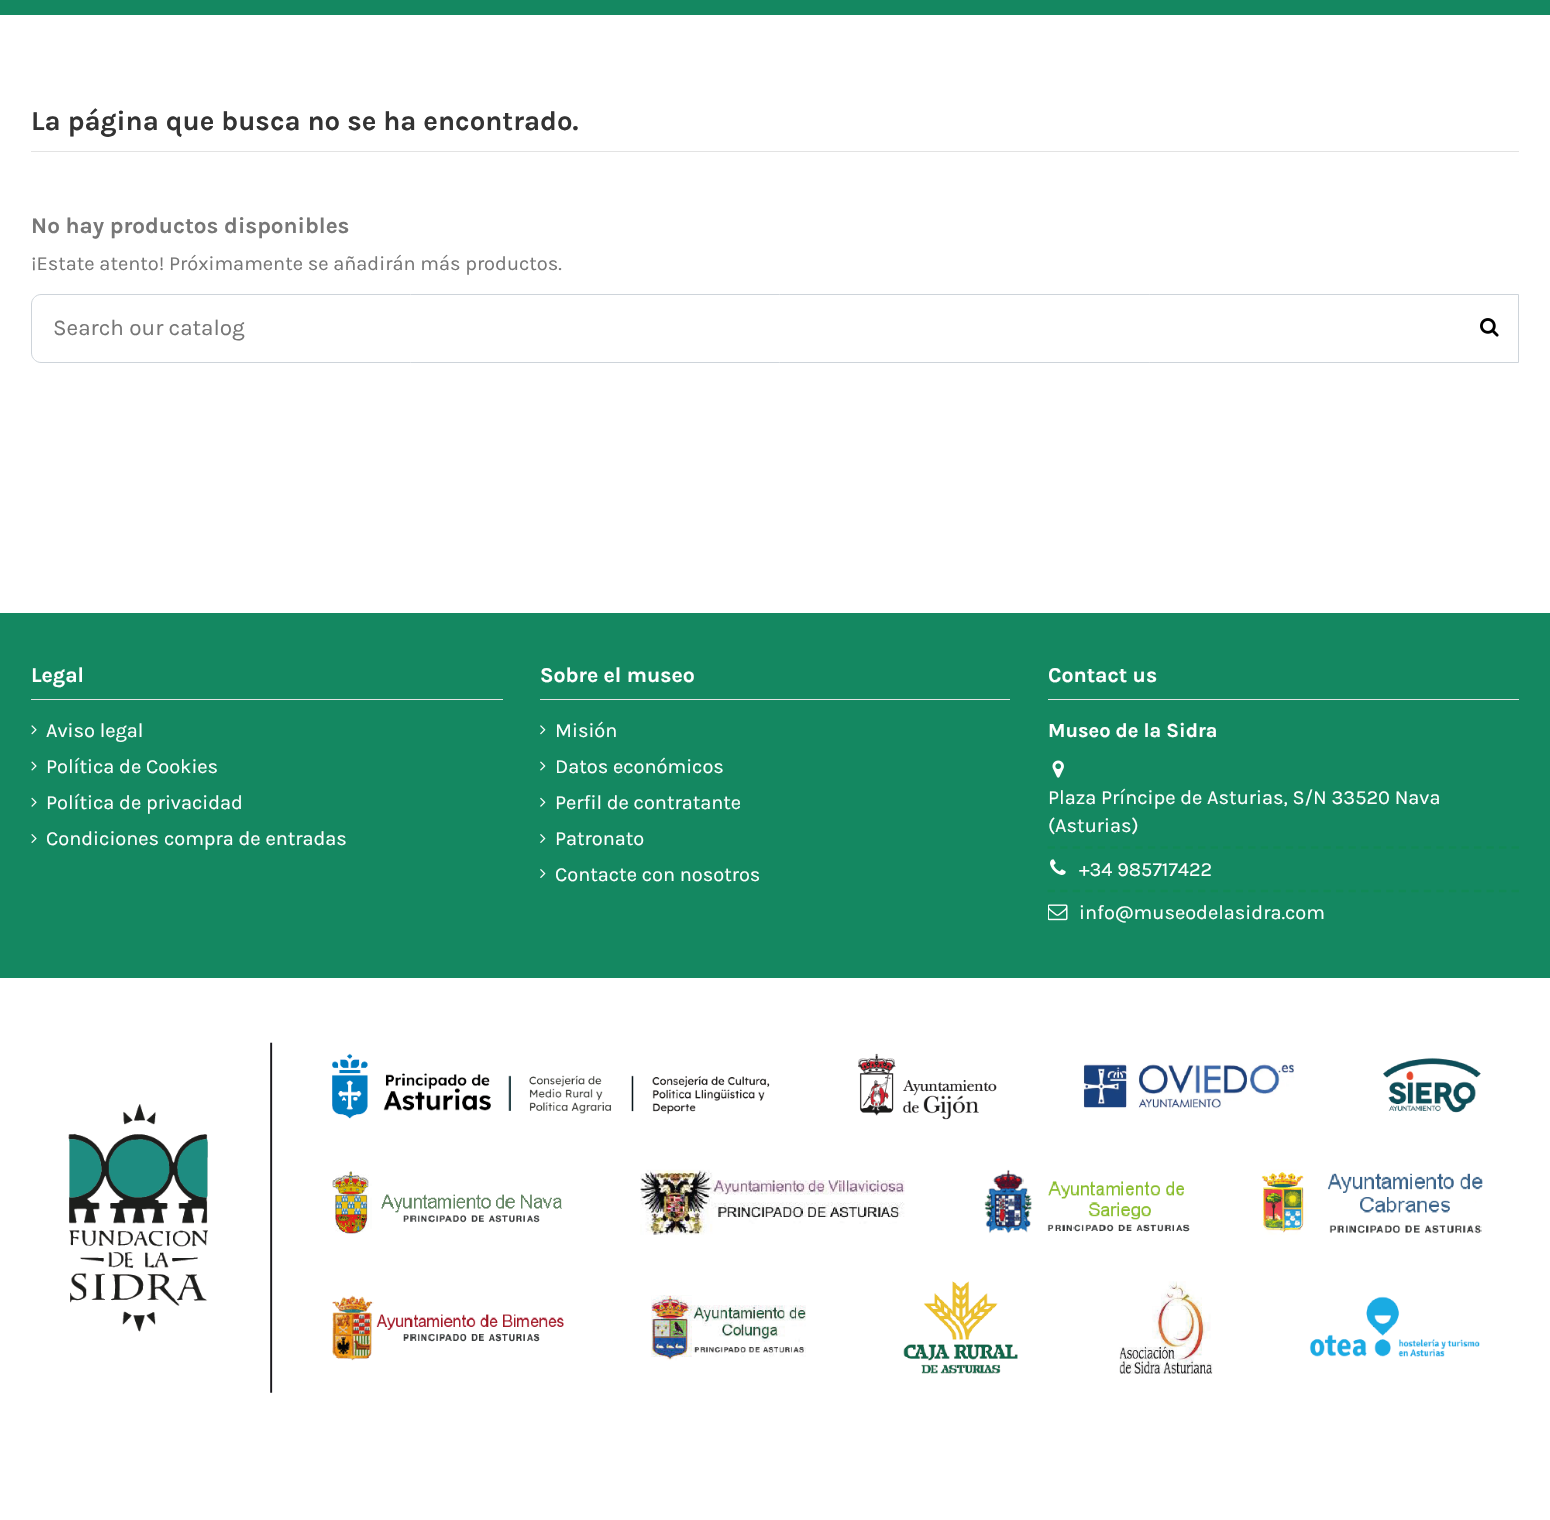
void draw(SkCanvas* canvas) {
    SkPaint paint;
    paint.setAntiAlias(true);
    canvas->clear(0xFFFFFFFF);
    paint.setColor(0xFF148861);
    canvas->drawRect(SkRect::MakeXYWH(0, 0, 1550, 15), paint);
    paint.setColor(0xFFE3E3E3);
    canvas->drawRect(SkRect::MakeXYWH(31, 151, 1488, 1), paint);
    SkFont font1(fontMgr->matchFamilyStyle("Karla", SkFontStyle::Bold()), 27.5f);
    font1.setSubpixel(true);
    paint.setColor(0xFF333333);
    canvas->drawString("La página que busca no se ha encontrado.", 31, 130, font1, paint);
    SkFont font2(fontMgr->matchFamilyStyle("Karla", SkFontStyle::Bold()), 22.5f);
    font2.setSubpixel(true);
    paint.setColor(0xFF777777);
    canvas->drawString("No hay productos disponibles", 31, 233, font2, paint);
    SkFont font3(fontMgr->matchFamilyStyle("Karla", SkFontStyle::Normal()), 20);
    font3.setSubpixel(true);
    canvas->drawString("¡Estate atento! Próximamente se añadirán más productos.", 31, 270, font3, paint);
    paint.setStyle(SkPaint::kStroke_Style);
    paint.setStrokeWidth(1);
    paint.setColor(0xFFCED4DA);
    canvas->drawPath(SkPathBuilder().moveTo(41, 294.5f).lineTo(1518.5f, 294.5f).lineTo(1518.5f, 362.5f).lineTo(41, 362.5f).cubicTo(36, 362.5f, 31.5f, 358, 31.5f, 353).lineTo(31.5f, 304).cubicTo(31.5f, 299, 36, 294.5f, 41, 294.5f).close().detach(), paint);
    SkFont font4(fontMgr->matchFamilyStyle("Karla", SkFontStyle::Normal()), 22.5f);
    font4.setSubpixel(true);
    paint.setStyle(SkPaint::kFill_Style);
    paint.setColor(0xFF777777);
    canvas->drawString("Search our catalog", 53, 335, font4, paint);
    canvas->drawImageRect(SkImages::DeferredFromEncodedData(SkData::MakeFromFileName("img1.png")), SkRect::MakeXYWH(1480, 318, 19, 19), SkSamplingOptions());
    paint.setColor(0xFF148861);
    canvas->drawRect(SkRect::MakeXYWH(0, 613, 1550, 365), paint);
    paint.setColor(0xFFE3E3E3);
    canvas->drawRect(SkRect::MakeXYWH(31, 699, 472, 1), paint);
    SkFont font5(fontMgr->matchFamilyStyle("Karla", SkFontStyle::Bold()), 21.25f);
    font5.setSubpixel(true);
    paint.setColor(0xFFFFFFFF);
    canvas->drawString("Legal", 31, 682, font5, paint);
    canvas->drawImageRect(SkImages::DeferredFromEncodedData(SkData::MakeFromFileName("img2.png")), SkRect::MakeXYWH(31, 725, 6, 10), SkSamplingOptions());
    canvas->drawString("Aviso legal", 46, 737, font3, paint);
    canvas->drawImageRect(SkImages::DeferredFromEncodedData(SkData::MakeFromFileName("img3.png")), SkRect::MakeXYWH(31, 761, 6, 10), SkSamplingOptions());
    canvas->drawString("Política de Cookies", 46, 773, font3, paint);
    canvas->drawImageRect(SkImages::DeferredFromEncodedData(SkData::MakeFromFileName("img4.png")), SkRect::MakeXYWH(31, 797, 6, 10), SkSamplingOptions());
    canvas->drawString("Política de privacidad", 46, 809, font3, paint);
    canvas->drawImageRect(SkImages::DeferredFromEncodedData(SkData::MakeFromFileName("img5.png")), SkRect::MakeXYWH(31, 834, 6, 9), SkSamplingOptions());
    canvas->drawString("Condiciones compra de entradas", 46, 845, font3, paint);
    paint.setColor(0xFFE3E3E3);
    canvas->drawRect(SkRect::MakeXYWH(540, 699, 470, 1), paint);
    paint.setColor(0xFFFFFFFF);
    canvas->drawString("Sobre el museo", 540, 682, font5, paint);
    canvas->drawImageRect(SkImages::DeferredFromEncodedData(SkData::MakeFromFileName("img6.png")), SkRect::MakeXYWH(540, 725, 6, 10), SkSamplingOptions());
    canvas->drawString("Misión", 555, 737, font3, paint);
    canvas->drawImageRect(SkImages::DeferredFromEncodedData(SkData::MakeFromFileName("img7.png")), SkRect::MakeXYWH(540, 761, 6, 10), SkSamplingOptions());
    canvas->drawString("Datos económicos", 555, 773, font3, paint);
    canvas->drawImageRect(SkImages::DeferredFromEncodedData(SkData::MakeFromFileName("img8.png")), SkRect::MakeXYWH(540, 797, 6, 10), SkSamplingOptions());
    canvas->drawString("Perfil de contratante", 555, 809, font3, paint);
    canvas->drawImageRect(SkImages::DeferredFromEncodedData(SkData::MakeFromFileName("img9.png")), SkRect::MakeXYWH(540, 834, 6, 9), SkSamplingOptions());
    canvas->drawString("Patronato", 555, 845, font3, paint);
    canvas->drawImageRect(SkImages::DeferredFromEncodedData(SkData::MakeFromFileName("img9.png")), SkRect::MakeXYWH(540, 869, 6, 9), SkSamplingOptions());
    canvas->drawString("Contacte con nosotros", 555, 881, font3, paint);
    paint.setColor(0xFFE3E3E3);
    canvas->drawRect(SkRect::MakeXYWH(1048, 699, 471, 1), paint);
    paint.setColor(0xFFFFFFFF);
    canvas->drawString("Contact us", 1048, 682, font5, paint);
    SkFont font6(fontMgr->matchFamilyStyle("Karla", SkFontStyle::Bold()), 20);
    font6.setSubpixel(true);
    canvas->drawString("Museo de la Sidra", 1048, 737, font6, paint);
    canvas->drawImageRect(SkImages::DeferredFromEncodedData(SkData::MakeFromFileName("img10.png")), SkRect::MakeXYWH(1052, 760, 12, 18), SkSamplingOptions());
    canvas->drawString("Plaza Príncipe de Asturias, S/N 33520 Nava", 1048, 804, font3, paint);
    canvas->drawString("(Asturias)", 1048, 832, font3, paint);
    paint.setStyle(SkPaint::kStroke_Style);
    paint.setStrokeWidth(2.5f);
    paint.setColor(0xFF108956);
    paint.setPathEffect(SkDashPathEffect::Make({{7.5f, 5.04f}}, 0));
    canvas->drawPath(SkPathBuilder().moveTo(1047.5f, 847.5f).lineTo(1519, 847.5f).detach(), paint);
    paint.setPathEffect(nullptr);
    canvas->drawImageRect(SkImages::DeferredFromEncodedData(SkData::MakeFromFileName("img11.png")), SkRect::MakeXYWH(1050, 859, 16, 16), SkSamplingOptions());
    paint.setStyle(SkPaint::kFill_Style);
    paint.setColor(0xFFFFFFFF);
    canvas->drawString("+34 985717422", 1079, 876, font3, paint);
    paint.setStyle(SkPaint::kStroke_Style);
    paint.setColor(0xFF108956);
    paint.setPathEffect(SkDashPathEffect::Make({{7.5f, 5.04f}}, 0));
    canvas->drawPath(SkPathBuilder().moveTo(1047.5f, 891).lineTo(1519, 891).detach(), paint);
    paint.setPathEffect(nullptr);
    canvas->drawImageRect(SkImages::DeferredFromEncodedData(SkData::MakeFromFileName("img12.png")), SkRect::MakeXYWH(1048, 904, 20, 17), SkSamplingOptions());
    paint.setStyle(SkPaint::kFill_Style);
    paint.setColor(0xFFFFFFFF);
    canvas->drawString("info@museodelasidra.com", 1079, 919, font3, paint);
    canvas->drawImageRect(SkImages::DeferredFromEncodedData(SkData::MakeFromFileName("img13.png")), SkRect::MakeXYWH(68, 1042, 1415, 351), SkSamplingOptions());
}
